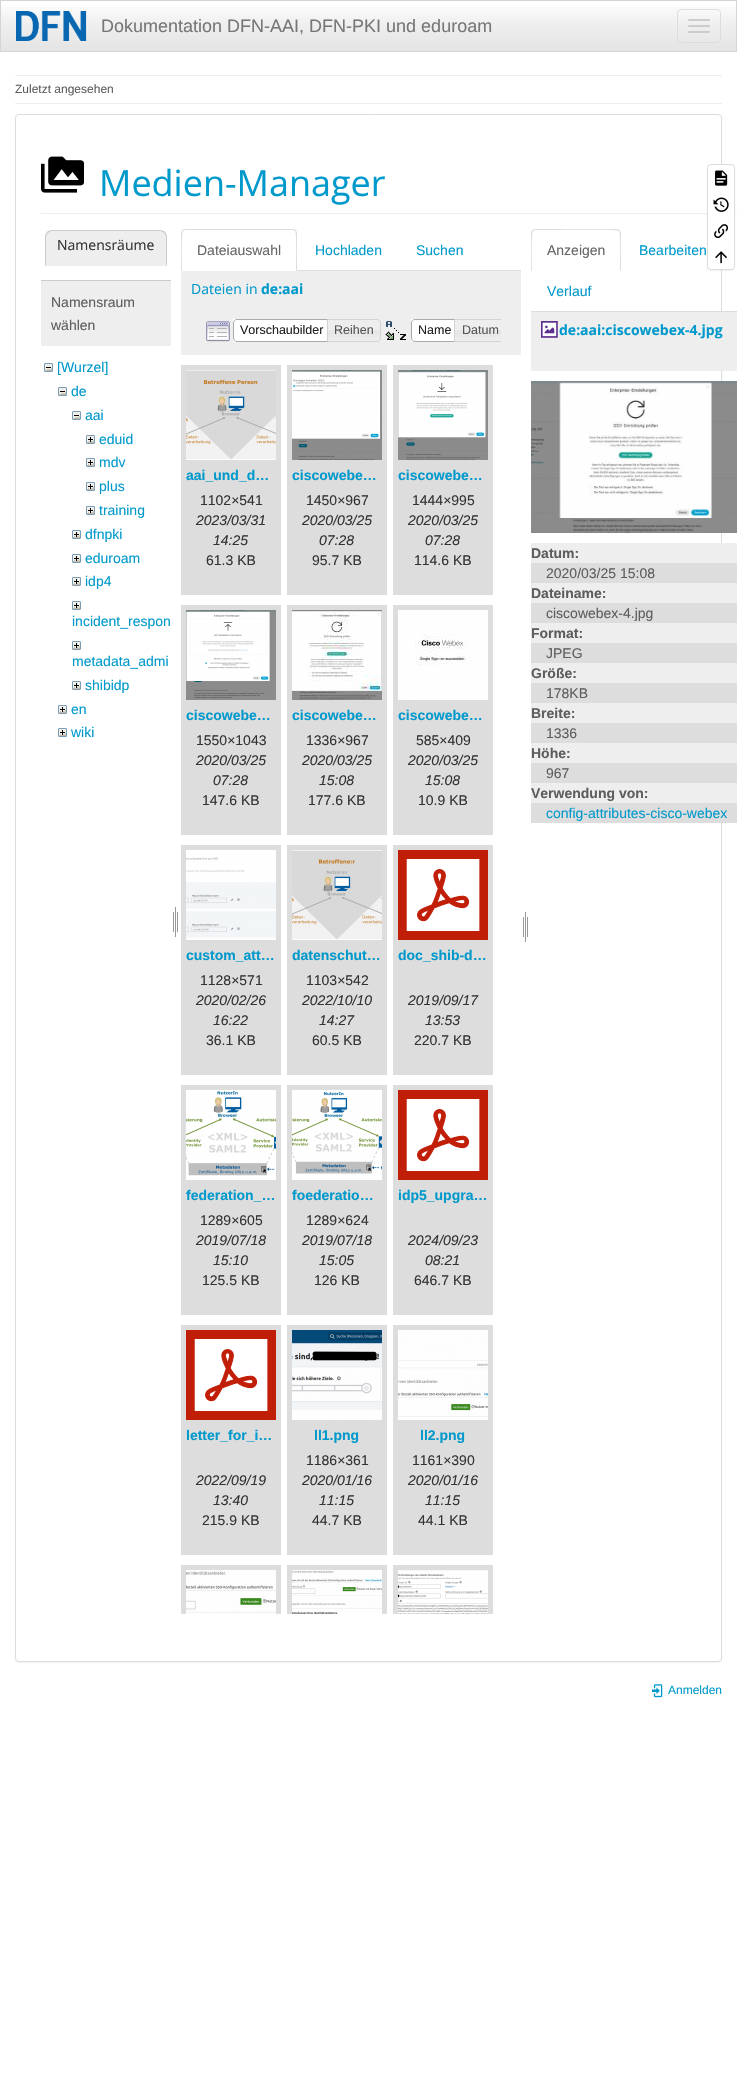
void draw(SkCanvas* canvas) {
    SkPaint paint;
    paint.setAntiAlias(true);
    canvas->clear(0xFFFFFFFF);
    {
        const SkColor colors[] = {0xFFFFFFFF, 0xFFEEEEEE, 0xFFE4E4E4};
        const float stops[] = {0, 0.5f, 1};
        const SkPoint ends[] = {{369, 1}, {369, 51}};
        paint.setShader(SkGradientShader::MakeLinear(ends, colors, stops, 3, SkTileMode::kClamp));
        paint.setAlpha(255);
    }
    canvas->drawRect(SkRect::MakeXYWH(1, 5, 735, 46), paint);
    paint.setStyle(SkPaint::kStroke_Style);
    paint.setStrokeWidth(1);
    paint.setShader(nullptr);
    paint.setColor(0xFFD5D5D5);
    canvas->drawRect(SkRect::MakeXYWH(0.5f, 0.5f, 736, 51), paint);
    canvas->drawImageRect(SkImages::DeferredFromEncodedData(SkData::MakeFromFileName("img1.png")), SkRect::MakeXYWH(16, 11, 71, 30), SkSamplingOptions());
    SkFont font1(fontMgr->matchFamilyStyle("Liberation Sans", SkFontStyle::Normal()), 18);
    font1.setSubpixel(true);
    paint.setStyle(SkPaint::kFill_Style);
    paint.setColor(0xFF777777);
    canvas->drawString("Dokumentation DFN-AAI, DFN-PKI und eduroam", 101, 32, font1, paint);
    paint.setStyle(SkPaint::kStroke_Style);
    paint.setColor(0xFFDDDDDD);
    canvas->drawRoundRect(SkRect::MakeXYWH(677.5f, 9.5f, 43, 33), 3.5f, 3.5f, paint);
    paint.setStyle(SkPaint::kFill_Style);
    paint.setColor(0xFFCCCCCC);
    canvas->drawRoundRect(SkRect::MakeXYWH(688, 19, 22, 2), 1, 1, paint);
    canvas->drawRoundRect(SkRect::MakeXYWH(688, 25, 22, 2), 1, 1, paint);
    canvas->drawRoundRect(SkRect::MakeXYWH(688, 31, 22, 2), 1, 1, paint);
    paint.setColor(0xFFEEEEEE);
    canvas->drawRect(SkRect::MakeXYWH(15, 75, 707, 1), paint);
    SkFont font2(fontMgr->matchFamilyStyle("Liberation Sans", SkFontStyle::Normal()), 12);
    font2.setSubpixel(true);
    paint.setColor(0xFF5D5D5D);
    canvas->drawString("Zuletzt angesehen", 15, 93, font2, paint);
    paint.setColor(0xFFEEEEEE);
    canvas->drawRect(SkRect::MakeXYWH(15, 103, 707, 1), paint);
    paint.setColor(0x0D000000);
    paint.setMaskFilter(SkMaskFilter::MakeBlur(kNormal_SkBlurStyle, 0.5f));
    canvas->drawRoundRect(SkRect::MakeXYWH(15, 115, 707, 1548), 4, 4, paint);
    paint.setMaskFilter(nullptr);
    paint.setColor(0xFFFFFFFF);
    canvas->drawRoundRect(SkRect::MakeXYWH(15.5f, 114.5f, 706, 1547), 3.5f, 3.5f, paint);
    paint.setStyle(SkPaint::kStroke_Style);
    paint.setColor(0xFFDDDDDD);
    canvas->drawRoundRect(SkRect::MakeXYWH(15.5f, 114.5f, 706, 1547), 3.5f, 3.5f, paint);
    paint.setStyle(SkPaint::kFill_Style);
    paint.setColor(0xFFEEEEEE);
    canvas->drawRect(SkRect::MakeXYWH(41, 213, 696, 1), paint);
    paint.setColor(0x0D000000);
    paint.setMaskFilter(SkMaskFilter::MakeBlur(kNormal_SkBlurStyle, 0.5f));
    canvas->drawRoundRect(SkRect::MakeXYWH(707, 165, 28, 106), 4, 4, paint);
    paint.setMaskFilter(nullptr);
    paint.setColor(0xFFFFFFFF);
    canvas->drawRoundRect(SkRect::MakeXYWH(707.5f, 164.5f, 27, 105), 3.5f, 3.5f, paint);
    paint.setStyle(SkPaint::kStroke_Style);
    paint.setColor(0xFFDDDDDD);
    canvas->drawRoundRect(SkRect::MakeXYWH(707.5f, 164.5f, 27, 105), 3.5f, 3.5f, paint);
    canvas->drawImageRect(SkImages::DeferredFromEncodedData(SkData::MakeFromFileName("img2.png")), SkRect::MakeXYWH(715, 170, 13, 16), SkSamplingOptions());
    canvas->drawImageRect(SkImages::DeferredFromEncodedData(SkData::MakeFromFileName("img3.png")), SkRect::MakeXYWH(713, 197, 16, 15), SkSamplingOptions());
    canvas->drawImageRect(SkImages::DeferredFromEncodedData(SkData::MakeFromFileName("img4.png")), SkRect::MakeXYWH(714, 224, 15, 15), SkSamplingOptions());
    canvas->drawImageRect(SkImages::DeferredFromEncodedData(SkData::MakeFromFileName("img5.png")), SkRect::MakeXYWH(715, 251, 12, 13), SkSamplingOptions());
    canvas->drawImageRect(SkImages::DeferredFromEncodedData(SkData::MakeFromFileName("img6.png")), SkRect::MakeXYWH(41, 156, 43, 37), SkSamplingOptions());
    SkFont font3(fontMgr->matchFamilyStyle("Open Sans", SkFontStyle::Normal()), 36);
    font3.setSubpixel(true);
    paint.setStyle(SkPaint::kFill_Style);
    paint.setColor(0xFF0099CC);
    canvas->drawString("Medien-Manager", 99, 196, font3, paint);
    paint.setColor(0xFFEEEEEE);
    canvas->drawPath(SkPathBuilder().moveTo(52, 230).lineTo(160, 230).cubicTo(164, 230, 167, 233, 167, 237).lineTo(167, 266).lineTo(45, 266).lineTo(45, 237).cubicTo(45, 233, 48, 230, 52, 230).close().detach(), paint);
    paint.setColor(0xFFCCCCCC);
    canvas->drawPath(SkPathBuilder().moveTo(52, 230).cubicTo(50, 230, 48, 231, 47, 232).lineTo(48, 233).lineTo(51, 231).lineTo(161, 231).lineTo(164, 233).lineTo(165, 232).cubicTo(164, 231, 162, 230, 160, 230).close().detach(), paint);
    canvas->drawPath(SkPathBuilder().moveTo(167, 266).lineTo(167, 237).cubicTo(167, 235, 166, 233, 165, 232).lineTo(164, 233).cubicTo(165, 234, 166, 235.5f, 166, 237).lineTo(166, 265).close().detach(), paint);
    paint.setColor(0xFFEEEEEE);
    canvas->drawPath(SkPathBuilder().moveTo(167, 266).lineTo(166, 265).lineTo(46, 265).lineTo(45, 266).close().detach(), paint);
    paint.setColor(0xFFCCCCCC);
    canvas->drawPath(SkPathBuilder().moveTo(45, 266).lineTo(46, 265).lineTo(46, 237).cubicTo(46, 235.5f, 47, 234, 48, 233).lineTo(47, 232).cubicTo(46, 233, 45, 235, 45, 237).close().detach(), paint);
    SkFont font4(fontMgr->matchFamilyStyle("Open Sans", SkFontStyle::Normal()), 14);
    font4.setSubpixel(true);
    paint.setColor(0xFF333333);
    canvas->drawString("Namensräume", 57, 250, font4, paint);
    paint.setColor(0xFFEEEEEE);
    canvas->drawRect(SkRect::MakeXYWH(41, 281, 130, 65), paint);
    paint.setColor(0xFFCCCCCC);
    canvas->drawRect(SkRect::MakeXYWH(41, 280, 130, 1), paint);
    SkFont font5(fontMgr->matchFamilyStyle("Liberation Sans", SkFontStyle::Normal()), 14);
    font5.setSubpixel(true);
    paint.setColor(0xFF5D5D5D);
    canvas->drawString("Namensraum", 51, 307, font5, paint);
    canvas->drawString("wählen", 51, 330, font5, paint);
    canvas->drawImageRect(SkImages::DeferredFromEncodedData(SkData::MakeFromFileName("img7.png")), SkRect::MakeXYWH(44, 363, 9, 9), SkSamplingOptions());
    paint.setColor(0xFF0099CC);
    canvas->drawString("[Wurzel]", 57, 372, font5, paint);
    canvas->drawImageRect(SkImages::DeferredFromEncodedData(SkData::MakeFromFileName("img7.png")), SkRect::MakeXYWH(58, 387, 9, 9), SkSamplingOptions());
    canvas->drawString("de", 71, 396, font5, paint);
    canvas->drawImageRect(SkImages::DeferredFromEncodedData(SkData::MakeFromFileName("img7.png")), SkRect::MakeXYWH(72, 411, 9, 9), SkSamplingOptions());
    canvas->drawString("aai", 85, 420, font5, paint);
    canvas->drawImageRect(SkImages::DeferredFromEncodedData(SkData::MakeFromFileName("img8.png")), SkRect::MakeXYWH(86, 435, 9, 9), SkSamplingOptions());
    canvas->drawString("eduid", 99, 444, font5, paint);
    canvas->drawImageRect(SkImages::DeferredFromEncodedData(SkData::MakeFromFileName("img8.png")), SkRect::MakeXYWH(86, 458, 9, 9), SkSamplingOptions());
    canvas->drawString("mdv", 99, 467, font5, paint);
    canvas->drawImageRect(SkImages::DeferredFromEncodedData(SkData::MakeFromFileName("img8.png")), SkRect::MakeXYWH(86, 482, 9, 9), SkSamplingOptions());
    canvas->drawString("plus", 99, 491, font5, paint);
    canvas->drawImageRect(SkImages::DeferredFromEncodedData(SkData::MakeFromFileName("img8.png")), SkRect::MakeXYWH(86, 506, 9, 9), SkSamplingOptions());
    canvas->drawString("training", 99, 515, font5, paint);
    canvas->drawImageRect(SkImages::DeferredFromEncodedData(SkData::MakeFromFileName("img8.png")), SkRect::MakeXYWH(72, 530, 9, 9), SkSamplingOptions());
    canvas->drawString("dfnpki", 85, 539, font5, paint);
    canvas->drawImageRect(SkImages::DeferredFromEncodedData(SkData::MakeFromFileName("img8.png")), SkRect::MakeXYWH(72, 554, 9, 9), SkSamplingOptions());
    canvas->drawString("eduroam", 85, 563, font5, paint);
    canvas->drawImageRect(SkImages::DeferredFromEncodedData(SkData::MakeFromFileName("img8.png")), SkRect::MakeXYWH(72, 577, 9, 9), SkSamplingOptions());
    canvas->drawString("idp4", 85, 586, font5, paint);
    canvas->drawImageRect(SkImages::DeferredFromEncodedData(SkData::MakeFromFileName("img8.png")), SkRect::MakeXYWH(72, 601, 9, 9), SkSamplingOptions());
    canvas->drawString("incident_respon", 72, 626, font5, paint);
    canvas->drawImageRect(SkImages::DeferredFromEncodedData(SkData::MakeFromFileName("img8.png")), SkRect::MakeXYWH(72, 641, 9, 9), SkSamplingOptions());
    canvas->drawString("metadata_admi", 72, 666, font5, paint);
    canvas->drawImageRect(SkImages::DeferredFromEncodedData(SkData::MakeFromFileName("img8.png")), SkRect::MakeXYWH(72, 681, 9, 9), SkSamplingOptions());
    canvas->drawString("shibidp", 85, 690, font5, paint);
    canvas->drawImageRect(SkImages::DeferredFromEncodedData(SkData::MakeFromFileName("img8.png")), SkRect::MakeXYWH(58, 705, 9, 9), SkSamplingOptions());
    canvas->drawString("en", 71, 714, font5, paint);
    canvas->drawImageRect(SkImages::DeferredFromEncodedData(SkData::MakeFromFileName("img8.png")), SkRect::MakeXYWH(58, 728, 9, 9), SkSamplingOptions());
    canvas->drawString("wiki", 71, 737, font5, paint);
    canvas->drawImageRect(SkImages::DeferredFromEncodedData(SkData::MakeFromFileName("img9.png")), SkRect::MakeXYWH(173, 906, 5, 31), SkSamplingOptions());
    paint.setColor(0xFFDDDDDD);
    canvas->drawRect(SkRect::MakeXYWH(297, 270, 224, 1), paint);
    canvas->drawPath(SkPathBuilder().moveTo(185, 229).lineTo(182, 230).lineTo(183, 231).lineTo(185, 230).lineTo(293, 230).lineTo(295, 231).lineTo(296, 230).lineTo(293, 229).close().detach(), paint);
    canvas->drawPath(SkPathBuilder().moveTo(297, 271).lineTo(297, 233).cubicTo(297, 232, 296, 231, 296, 230).lineTo(295, 231).cubicTo(297, 233, 296, 265, 296, 270).close().detach(), paint);
    canvas->drawPath(SkPathBuilder().moveTo(181, 271).lineTo(182, 270).cubicTo(182, 265, 181, 233, 183, 231).lineTo(182, 230).lineTo(181, 233).close().detach(), paint);
    paint.setColor(0xFF666666);
    canvas->drawString("Dateiauswahl", 197, 255, font5, paint);
    paint.setColor(0xFF0099CC);
    canvas->drawString("Hochladen", 315, 255, font5, paint);
    canvas->drawString("Suchen", 416, 255, font5, paint);
    paint.setColor(0xFFEEEEEE);
    canvas->drawRect(SkRect::MakeXYWH(181, 271, 340, 84), paint);
    paint.setColor(0xFF0099CC);
    canvas->drawString("Dateien in", 191, 294, font4, paint);
    SkFont font6(fontMgr->matchFamilyStyle("Open Sans", SkFontStyle::Bold()), 14);
    font6.setSubpixel(true);
    canvas->drawString("de:aai", 261, 294, font6, paint);
    canvas->drawImageRect(SkImages::DeferredFromEncodedData(SkData::MakeFromFileName("img10.png")), SkRect::MakeXYWH(206, 321, 24, 21), SkSamplingOptions());
    paint.setColor(0xFFFFFFFF);
    canvas->drawRect(SkRect::MakeXYWH(233, 319, 94, 23), paint);
    paint.setStyle(SkPaint::kStroke_Style);
    paint.setColor(0xFFAAAAAA);
    canvas->drawPath(SkPathBuilder().moveTo(237, 319.5f).lineTo(331.5f, 319.5f).lineTo(331.5f, 341.5f).lineTo(237, 341.5f).cubicTo(235, 341.5f, 233.5f, 340, 233.5f, 338).lineTo(233.5f, 323).cubicTo(233.5f, 321, 235, 319.5f, 237, 319.5f).close().detach(), paint);
    SkFont font7(fontMgr->matchFamilyStyle("Liberation Sans", SkFontStyle::Normal()), 12.5f);
    font7.setSubpixel(true);
    paint.setStyle(SkPaint::kFill_Style);
    paint.setColor(0xFF212121);
    canvas->drawString("Vorschaubilder", 240, 334, font7, paint);
    canvas->drawImageRect(SkImages::DeferredFromEncodedData(SkData::MakeFromFileName("img11.png")), SkRect::MakeXYWH(328, 319, 53, 23), SkSamplingOptions());
    paint.setStyle(SkPaint::kStroke_Style);
    paint.setColor(0xFFD3D3D3);
    canvas->drawPath(SkPathBuilder().moveTo(327.5f, 319.5f).lineTo(377, 319.5f).cubicTo(379, 319.5f, 380.5f, 321, 380.5f, 323).lineTo(380.5f, 338).cubicTo(380.5f, 340, 379, 341.5f, 377, 341.5f).lineTo(327.5f, 341.5f).close().detach(), paint);
    paint.setStyle(SkPaint::kFill_Style);
    paint.setColor(0xFF555555);
    canvas->drawString("Reihen", 334, 334, font7, paint);
    canvas->drawImageRect(SkImages::DeferredFromEncodedData(SkData::MakeFromFileName("img12.png")), SkRect::MakeXYWH(385, 321, 21, 19), SkSamplingOptions());
    paint.setColor(0xFFFFFFFF);
    canvas->drawRect(SkRect::MakeXYWH(411, 319, 43, 23), paint);
    paint.setStyle(SkPaint::kStroke_Style);
    paint.setColor(0xFFAAAAAA);
    canvas->drawPath(SkPathBuilder().moveTo(415, 319.5f).lineTo(458.5f, 319.5f).lineTo(458.5f, 341.5f).lineTo(415, 341.5f).cubicTo(413, 341.5f, 411.5f, 340, 411.5f, 338).lineTo(411.5f, 323).cubicTo(411.5f, 321, 413, 319.5f, 415, 319.5f).close().detach(), paint);
    paint.setStyle(SkPaint::kFill_Style);
    paint.setColor(0xFF212121);
    canvas->drawString("Name", 418, 334, font7, paint);
    canvas->drawImageRect(SkImages::DeferredFromEncodedData(SkData::MakeFromFileName("img13.png")), SkRect::MakeXYWH(455, 320, 46, 21), SkSamplingOptions());
    canvas->save();
    canvas->clipRect(SkRect::MakeXYWH(198, 319, 303, 28));
    paint.setStyle(SkPaint::kStroke_Style);
    paint.setColor(0xFFD3D3D3);
    canvas->drawPath(SkPathBuilder().moveTo(454.5f, 319.5f).lineTo(502, 319.5f).cubicTo(504, 319.5f, 505.5f, 321, 505.5f, 323).lineTo(505.5f, 338).cubicTo(505.5f, 340, 504, 341.5f, 502, 341.5f).lineTo(454.5f, 341.5f).close().detach(), paint);
    canvas->restore();
    paint.setStyle(SkPaint::kFill_Style);
    paint.setColor(0xFF555555);
    canvas->drawString("Datum", 462, 334, font7, paint);
    paint.setColor(0xFFDDDDDD);
    canvas->drawRect(SkRect::MakeXYWH(181, 365, 100, 230), paint);
    canvas->drawImageRect(SkImages::DeferredFromEncodedData(SkData::MakeFromFileName("img14.png")), SkRect::MakeXYWH(186, 370, 90, 90), SkSamplingOptions());
    SkFont font8(fontMgr->matchFamilyStyle("Liberation Sans", SkFontStyle::Bold()), 14);
    font8.setSubpixel(true);
    paint.setColor(0xFF0099CC);
    canvas->drawString("aai_und_d…", 186, 480, font8, paint);
    paint.setColor(0xFF333333);
    canvas->drawString("1102×541", 200, 505, font5, paint);
    SkFont font9(fontMgr->matchFamilyStyle("Liberation Sans", SkFontStyle::Italic()), 14);
    font9.setSubpixel(true);
    canvas->drawString("2023/03/31", 196, 525, font9, paint);
    canvas->drawString("14:25", 213, 545, font9, paint);
    canvas->drawString("61.3 KB", 206, 565, font5, paint);
    paint.setColor(0xFFDDDDDD);
    canvas->drawRect(SkRect::MakeXYWH(287, 365, 100, 230), paint);
    canvas->drawImageRect(SkImages::DeferredFromEncodedData(SkData::MakeFromFileName("img15.png")), SkRect::MakeXYWH(292, 370, 90, 90), SkSamplingOptions());
    paint.setColor(0xFF0099CC);
    canvas->drawString("ciscowebe…", 292, 480, font8, paint);
    paint.setColor(0xFF333333);
    canvas->drawString("1450×967", 306, 505, font5, paint);
    canvas->drawString("2020/03/25", 302, 525, font9, paint);
    canvas->drawString("07:28", 319, 545, font9, paint);
    canvas->drawString("95.7 KB", 312, 565, font5, paint);
    paint.setColor(0xFFDDDDDD);
    canvas->drawRect(SkRect::MakeXYWH(393, 365, 100, 230), paint);
    canvas->drawImageRect(SkImages::DeferredFromEncodedData(SkData::MakeFromFileName("img16.png")), SkRect::MakeXYWH(398, 370, 90, 90), SkSamplingOptions());
    paint.setColor(0xFF0099CC);
    canvas->drawString("ciscowebe…", 398, 480, font8, paint);
    paint.setColor(0xFF333333);
    canvas->drawString("1444×995", 412, 505, font5, paint);
    canvas->drawString("2020/03/25", 408, 525, font9, paint);
    canvas->drawString("07:28", 425, 545, font9, paint);
    canvas->drawString("114.6 KB", 414, 565, font5, paint);
    paint.setColor(0xFFDDDDDD);
    canvas->drawRect(SkRect::MakeXYWH(181, 605, 100, 230), paint);
    canvas->drawImageRect(SkImages::DeferredFromEncodedData(SkData::MakeFromFileName("img17.png")), SkRect::MakeXYWH(186, 610, 90, 90), SkSamplingOptions());
    paint.setColor(0xFF0099CC);
    canvas->drawString("ciscowebe…", 186, 720, font8, paint);
    paint.setColor(0xFF333333);
    canvas->drawString("1550×1043", 196, 745, font5, paint);
    canvas->drawString("2020/03/25", 196, 765, font9, paint);
    canvas->drawString("07:28", 213, 785, font9, paint);
    canvas->drawString("147.6 KB", 202, 805, font5, paint);
    paint.setColor(0xFFDDDDDD);
    canvas->drawRect(SkRect::MakeXYWH(287, 605, 100, 230), paint);
    canvas->drawImageRect(SkImages::DeferredFromEncodedData(SkData::MakeFromFileName("img18.png")), SkRect::MakeXYWH(292, 610, 90, 90), SkSamplingOptions());
    paint.setColor(0xFF0099CC);
    canvas->drawString("ciscowebe…", 292, 720, font8, paint);
    paint.setColor(0xFF333333);
    canvas->drawString("1336×967", 306, 745, font5, paint);
    canvas->drawString("2020/03/25", 302, 765, font9, paint);
    canvas->drawString("15:08", 319, 785, font9, paint);
    canvas->drawString("177.6 KB", 308, 805, font5, paint);
    paint.setColor(0xFFDDDDDD);
    canvas->drawRect(SkRect::MakeXYWH(393, 605, 100, 230), paint);
    canvas->drawImageRect(SkImages::DeferredFromEncodedData(SkData::MakeFromFileName("img19.png")), SkRect::MakeXYWH(398, 610, 90, 90), SkSamplingOptions());
    paint.setColor(0xFF0099CC);
    canvas->drawString("ciscowebe…", 398, 720, font8, paint);
    paint.setColor(0xFF333333);
    canvas->drawString("585×409", 416, 745, font5, paint);
    canvas->drawString("2020/03/25", 408, 765, font9, paint);
    canvas->drawString("15:08", 425, 785, font9, paint);
    canvas->drawString("10.9 KB", 418, 805, font5, paint);
    paint.setColor(0xFFDDDDDD);
    canvas->drawRect(SkRect::MakeXYWH(181, 845, 100, 230), paint);
    canvas->drawImageRect(SkImages::DeferredFromEncodedData(SkData::MakeFromFileName("img20.png")), SkRect::MakeXYWH(186, 850, 90, 90), SkSamplingOptions());
    paint.setColor(0xFF0099CC);
    canvas->drawString("custom_att…", 186, 960, font8, paint);
    paint.setColor(0xFF333333);
    canvas->drawString("1128×571", 200, 985, font5, paint);
    canvas->drawString("2020/02/26", 196, 1005, font9, paint);
    canvas->drawString("16:22", 213, 1025, font9, paint);
    canvas->drawString("36.1 KB", 206, 1045, font5, paint);
    paint.setColor(0xFFDDDDDD);
    canvas->drawRect(SkRect::MakeXYWH(287, 845, 100, 230), paint);
    canvas->drawImageRect(SkImages::DeferredFromEncodedData(SkData::MakeFromFileName("img21.png")), SkRect::MakeXYWH(292, 850, 90, 90), SkSamplingOptions());
    paint.setColor(0xFF0099CC);
    canvas->drawString("datenschut…", 292, 960, font8, paint);
    paint.setColor(0xFF333333);
    canvas->drawString("1103×542", 306, 985, font5, paint);
    canvas->drawString("2022/10/10", 302, 1005, font9, paint);
    canvas->drawString("14:27", 319, 1025, font9, paint);
    canvas->drawString("60.5 KB", 312, 1045, font5, paint);
    paint.setColor(0xFFDDDDDD);
    canvas->drawRect(SkRect::MakeXYWH(393, 845, 100, 230), paint);
    canvas->drawImageRect(SkImages::DeferredFromEncodedData(SkData::MakeFromFileName("img22.png")), SkRect::MakeXYWH(398, 850, 90, 90), SkSamplingOptions());
    paint.setColor(0xFF0099CC);
    canvas->drawString("doc_shib-d…", 398, 960, font8, paint);
    paint.setColor(0xFF333333);
    canvas->drawString("2019/09/17", 408, 1005, font9, paint);
    canvas->drawString("13:53", 425, 1025, font9, paint);
    canvas->drawString("220.7 KB", 414, 1045, font5, paint);
    paint.setColor(0xFFDDDDDD);
    canvas->drawRect(SkRect::MakeXYWH(181, 1085, 100, 230), paint);
    canvas->drawImageRect(SkImages::DeferredFromEncodedData(SkData::MakeFromFileName("img23.png")), SkRect::MakeXYWH(186, 1090, 90, 90), SkSamplingOptions());
    paint.setColor(0xFF0099CC);
    canvas->drawString("federation_…", 186, 1200, font8, paint);
    paint.setColor(0xFF333333);
    canvas->drawString("1289×605", 200, 1225, font5, paint);
    canvas->drawString("2019/07/18", 196, 1245, font9, paint);
    canvas->drawString("15:10", 213, 1265, font9, paint);
    canvas->drawString("125.5 KB", 202, 1285, font5, paint);
    paint.setColor(0xFFDDDDDD);
    canvas->drawRect(SkRect::MakeXYWH(287, 1085, 100, 230), paint);
    canvas->drawImageRect(SkImages::DeferredFromEncodedData(SkData::MakeFromFileName("img24.png")), SkRect::MakeXYWH(292, 1090, 90, 90), SkSamplingOptions());
    paint.setColor(0xFF0099CC);
    canvas->drawString("foederatio…", 292, 1200, font8, paint);
    paint.setColor(0xFF333333);
    canvas->drawString("1289×624", 306, 1225, font5, paint);
    canvas->drawString("2019/07/18", 302, 1245, font9, paint);
    canvas->drawString("15:05", 319, 1265, font9, paint);
    canvas->drawString("126 KB", 314, 1285, font5, paint);
    paint.setColor(0xFFDDDDDD);
    canvas->drawRect(SkRect::MakeXYWH(393, 1085, 100, 230), paint);
    canvas->drawImageRect(SkImages::DeferredFromEncodedData(SkData::MakeFromFileName("img22.png")), SkRect::MakeXYWH(398, 1090, 90, 90), SkSamplingOptions());
    paint.setColor(0xFF0099CC);
    canvas->drawString("idp5_upgra…", 398, 1200, font8, paint);
    paint.setColor(0xFF333333);
    canvas->drawString("2024/09/23", 408, 1245, font9, paint);
    canvas->drawString("08:21", 425, 1265, font9, paint);
    canvas->drawString("646.7 KB", 414, 1285, font5, paint);
    paint.setColor(0xFFDDDDDD);
    canvas->drawRect(SkRect::MakeXYWH(181, 1325, 100, 230), paint);
    canvas->drawImageRect(SkImages::DeferredFromEncodedData(SkData::MakeFromFileName("img22.png")), SkRect::MakeXYWH(186, 1330, 90, 90), SkSamplingOptions());
    paint.setColor(0xFF0099CC);
    canvas->drawString("letter_for_i…", 186, 1440, font8, paint);
    paint.setColor(0xFF333333);
    canvas->drawString("2022/09/19", 196, 1485, font9, paint);
    canvas->drawString("13:40", 213, 1505, font9, paint);
    canvas->drawString("215.9 KB", 202, 1525, font5, paint);
    paint.setColor(0xFFDDDDDD);
    canvas->drawRect(SkRect::MakeXYWH(287, 1325, 100, 230), paint);
    canvas->drawImageRect(SkImages::DeferredFromEncodedData(SkData::MakeFromFileName("img25.png")), SkRect::MakeXYWH(292, 1330, 90, 90), SkSamplingOptions());
    paint.setColor(0xFF0099CC);
    canvas->drawString("ll1.png", 314, 1440, font8, paint);
    paint.setColor(0xFF333333);
    canvas->drawString("1186×361", 306, 1465, font5, paint);
    canvas->drawString("2020/01/16", 302, 1485, font9, paint);
    canvas->drawString("11:15", 319, 1505, font9, paint);
    canvas->drawString("44.7 KB", 312, 1525, font5, paint);
    paint.setColor(0xFFDDDDDD);
    canvas->drawRect(SkRect::MakeXYWH(393, 1325, 100, 230), paint);
    canvas->drawImageRect(SkImages::DeferredFromEncodedData(SkData::MakeFromFileName("img26.png")), SkRect::MakeXYWH(398, 1330, 90, 90), SkSamplingOptions());
    paint.setColor(0xFF0099CC);
    canvas->drawString("ll2.png", 420, 1440, font8, paint);
    paint.setColor(0xFF333333);
    canvas->drawString("1161×390", 412, 1465, font5, paint);
    canvas->drawString("2020/01/16", 408, 1485, font9, paint);
    canvas->drawString("11:15", 425, 1505, font9, paint);
    canvas->drawString("44.1 KB", 418, 1525, font5, paint);
    paint.setColor(0xFFDDDDDD);
    canvas->drawRect(SkRect::MakeXYWH(181, 1565, 100, 49), paint);
    canvas->drawImageRect(SkImages::DeferredFromEncodedData(SkData::MakeFromFileName("img27.png")), SkRect::MakeXYWH(186, 1570, 90, 44), SkSamplingOptions());
    canvas->drawRect(SkRect::MakeXYWH(287, 1565, 100, 49), paint);
    canvas->drawImageRect(SkImages::DeferredFromEncodedData(SkData::MakeFromFileName("img28.png")), SkRect::MakeXYWH(292, 1570, 90, 44), SkSamplingOptions());
    canvas->drawRect(SkRect::MakeXYWH(393, 1565, 100, 49), paint);
    canvas->drawImageRect(SkImages::DeferredFromEncodedData(SkData::MakeFromFileName("img29.png")), SkRect::MakeXYWH(398, 1570, 90, 44), SkSamplingOptions());
    canvas->drawImageRect(SkImages::DeferredFromEncodedData(SkData::MakeFromFileName("img9.png")), SkRect::MakeXYWH(523, 911, 5, 31), SkSamplingOptions());
    canvas->drawRect(SkRect::MakeXYWH(531, 311, 206, 1), paint);
    canvas->drawPath(SkPathBuilder().moveTo(535, 229).lineTo(532, 230).lineTo(533, 231).lineTo(535, 230).lineTo(549, 230).cubicTo(556, 230, 617, 229, 619, 231).lineTo(620, 230).lineTo(617, 229).close().detach(), paint);
    canvas->drawPath(SkPathBuilder().moveTo(621, 271).lineTo(621, 233).cubicTo(621, 232, 620, 231, 620, 230).lineTo(619, 231).cubicTo(621, 233, 620, 265, 620, 270).close().detach(), paint);
    canvas->drawPath(SkPathBuilder().moveTo(531, 271).lineTo(532, 270).cubicTo(532, 265, 531, 233, 533, 231).lineTo(532, 230).lineTo(531, 233).close().detach(), paint);
    paint.setColor(0xFF666666);
    canvas->drawString("Anzeigen", 547, 255, font5, paint);
    paint.setColor(0xFF0099CC);
    canvas->drawString("Bearbeiten", 639, 255, font5, paint);
    canvas->drawString("Verlauf", 547, 296, font5, paint);
    paint.setColor(0xFFEEEEEE);
    canvas->drawRect(SkRect::MakeXYWH(531, 312, 206, 59), paint);
    canvas->drawImageRect(SkImages::DeferredFromEncodedData(SkData::MakeFromFileName("img30.png")), SkRect::MakeXYWH(541, 321, 17, 17), SkSamplingOptions());
    paint.setColor(0xFF0099CC);
    canvas->drawString("de:aai:ciscowebex-4.jpg", 559, 335, font6, paint);
    canvas->drawImageRect(SkImages::DeferredFromEncodedData(SkData::MakeFromFileName("img31.png")), SkRect::MakeXYWH(531, 381, 206, 152), SkSamplingOptions());
    paint.setColor(0xFFEEEEEE);
    canvas->drawRect(SkRect::MakeXYWH(531, 543, 206, 20), paint);
    paint.setColor(0xFF5D5D5D);
    canvas->drawString("Datum:", 531, 558, font8, paint);
    paint.setColor(0xFFDDDDDD);
    canvas->drawRect(SkRect::MakeXYWH(531, 563, 206, 20), paint);
    paint.setColor(0xFF5D5D5D);
    canvas->drawString("2020/03/25 15:08", 546, 578, font5, paint);
    paint.setColor(0xFFEEEEEE);
    canvas->drawRect(SkRect::MakeXYWH(531, 583, 206, 20), paint);
    paint.setColor(0xFF5D5D5D);
    canvas->drawString("Dateiname:", 531, 598, font8, paint);
    paint.setColor(0xFFDDDDDD);
    canvas->drawRect(SkRect::MakeXYWH(531, 603, 206, 20), paint);
    paint.setColor(0xFF5D5D5D);
    canvas->drawString("ciscowebex-4.jpg", 546, 618, font5, paint);
    paint.setColor(0xFFEEEEEE);
    canvas->drawRect(SkRect::MakeXYWH(531, 623, 206, 20), paint);
    paint.setColor(0xFF5D5D5D);
    canvas->drawString("Format:", 531, 638, font8, paint);
    paint.setColor(0xFFDDDDDD);
    canvas->drawRect(SkRect::MakeXYWH(531, 643, 206, 20), paint);
    paint.setColor(0xFF5D5D5D);
    canvas->drawString("JPEG", 546, 658, font5, paint);
    paint.setColor(0xFFEEEEEE);
    canvas->drawRect(SkRect::MakeXYWH(531, 663, 206, 20), paint);
    paint.setColor(0xFF5D5D5D);
    canvas->drawString("Größe:", 531, 678, font8, paint);
    paint.setColor(0xFFDDDDDD);
    canvas->drawRect(SkRect::MakeXYWH(531, 683, 206, 20), paint);
    paint.setColor(0xFF5D5D5D);
    canvas->drawString("178KB", 546, 698, font5, paint);
    paint.setColor(0xFFEEEEEE);
    canvas->drawRect(SkRect::MakeXYWH(531, 703, 206, 20), paint);
    paint.setColor(0xFF5D5D5D);
    canvas->drawString("Breite:", 531, 718, font8, paint);
    paint.setColor(0xFFDDDDDD);
    canvas->drawRect(SkRect::MakeXYWH(531, 723, 206, 20), paint);
    paint.setColor(0xFF5D5D5D);
    canvas->drawString("1336", 546, 738, font5, paint);
    paint.setColor(0xFFEEEEEE);
    canvas->drawRect(SkRect::MakeXYWH(531, 743, 206, 20), paint);
    paint.setColor(0xFF5D5D5D);
    canvas->drawString("Höhe:", 531, 758, font8, paint);
    paint.setColor(0xFFDDDDDD);
    canvas->drawRect(SkRect::MakeXYWH(531, 763, 206, 20), paint);
    paint.setColor(0xFF5D5D5D);
    canvas->drawString("967", 546, 778, font5, paint);
    paint.setColor(0xFFEEEEEE);
    canvas->drawRect(SkRect::MakeXYWH(531, 783, 206, 20), paint);
    paint.setColor(0xFF5D5D5D);
    canvas->drawString("Verwendung von:", 531, 798, font8, paint);
    paint.setColor(0xFFDDDDDD);
    canvas->drawRect(SkRect::MakeXYWH(531, 803, 206, 20), paint);
    paint.setColor(0xFF0099CC);
    canvas->drawString("config-attributes-cisco-webex", 546, 818, font5, paint);
    canvas->drawImageRect(SkImages::DeferredFromEncodedData(SkData::MakeFromFileName("img32.png")), SkRect::MakeXYWH(651, 1684, 12, 14), SkSamplingOptions());
    canvas->drawString("Anmelden", 668, 1694, font2, paint);
}
